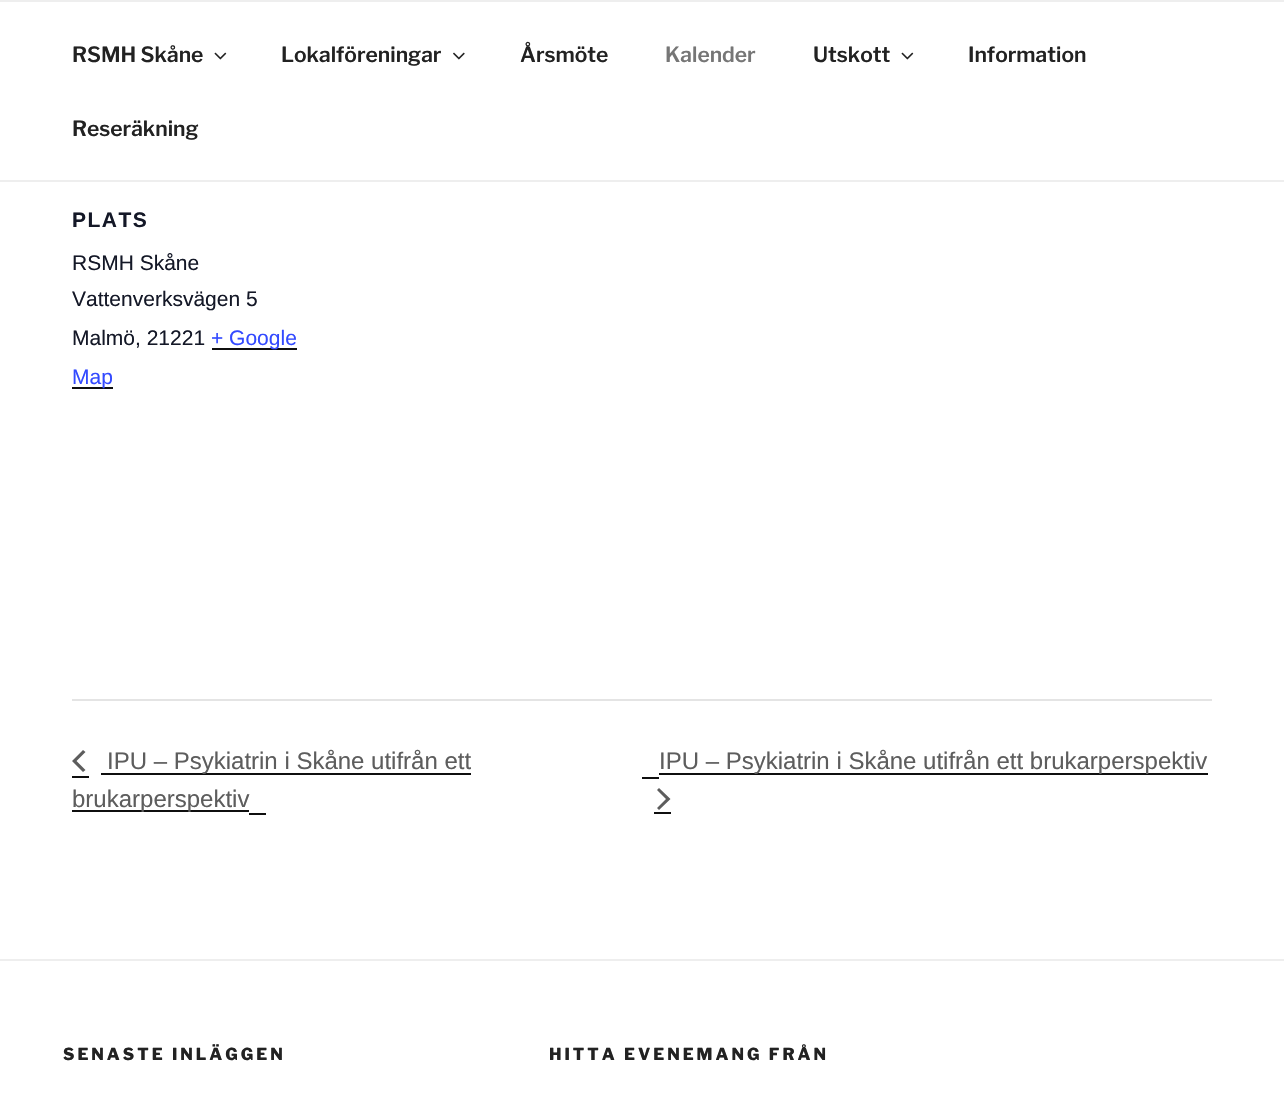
void draw(SkCanvas* canvas) {
    SkPaint paint;
    paint.setAntiAlias(true);
    auto spacedText = [&](const char* s, float x, float y, const SkFont& font, const SkPaint& ink, float letter, float word) {
        std::vector<SkGlyphID> glyphs(font.countText(s, strlen(s), SkTextEncoding::kUTF8));
        std::vector<float> xs(glyphs.size());
        font.textToGlyphs(s, strlen(s), SkTextEncoding::kUTF8, glyphs);
        font.getXPos(glyphs, xs, x);
        float extra = 0;
        for (size_t i = 0; i < glyphs.size(); i++) {
            xs[i] += extra;
            extra += letter + word * (glyphs[i] == font.unicharToGlyph(' '));
        }
        canvas->drawTextBlob(SkTextBlob::MakeFromPosHGlyphs(glyphs, xs, y, font), 0, 0, ink);
    };
    canvas->clear(0xFFFFFFFF);
    paint.setColor(0xFFEEEEEE);
    canvas->drawRect(SkRect::MakeXYWH(0, 0, 1284, 2), paint);
    canvas->drawRect(SkRect::MakeXYWH(0, 180, 1284, 2), paint);
    SkFont font1(fontMgr->matchFamilyStyle("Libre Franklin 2", SkFontStyle(100, SkFontStyle::kNormal_Width, SkFontStyle::kUpright_Slant)), 21);
    font1.setSubpixel(true);
    paint.setColor(0xFF222222);
    canvas->drawString("RSMH Skåne", 72, 62, font1, paint);
    canvas->drawImageRect(SkImages::DeferredFromEncodedData(SkData::MakeFromFileName("img1.png")), SkRect::MakeXYWH(214, 52, 13, 8), SkSamplingOptions());
    canvas->drawString("Lokalföreningar", 281, 62, font1, paint);
    canvas->drawImageRect(SkImages::DeferredFromEncodedData(SkData::MakeFromFileName("img2.png")), SkRect::MakeXYWH(453, 52, 12, 8), SkSamplingOptions());
    canvas->drawString("Årsmöte", 520, 62, font1, paint);
    paint.setColor(0xFF767676);
    canvas->drawString("Kalender", 665, 62, font1, paint);
    paint.setColor(0xFF222222);
    canvas->drawString("Utskott", 813, 62, font1, paint);
    canvas->drawImageRect(SkImages::DeferredFromEncodedData(SkData::MakeFromFileName("img1.png")), SkRect::MakeXYWH(901, 52, 13, 8), SkSamplingOptions());
    canvas->drawString("Information", 968, 62, font1, paint);
    canvas->drawString("Reseräkning", 72, 136, font1, paint);
    SkFont font2(fontMgr->matchFamilyStyle("Liberation Sans", SkFontStyle::Bold()), 21);
    font2.setSubpixel(true);
    paint.setColor(0xFF141827);
    spacedText("PLATS", 72, 227, font2, paint, 1.5f, 0);
    SkFont font3(fontMgr->matchFamilyStyle("Liberation Sans", SkFontStyle::Normal()), 21);
    font3.setSubpixel(true);
    canvas->drawString("RSMH Skåne", 72, 270, font3, paint);
    canvas->drawString("Vattenverksvägen 5", 72, 306, font3, paint);
    canvas->drawString("Malmö, 21221", 72, 345, font3, paint);
    paint.setColor(0xFF0F0F0F);
    canvas->drawRect(SkRect::MakeXYWH(212, 348, 85, 2), paint);
    paint.setColor(0xFF334AFF);
    canvas->drawString("+ Google", 211, 345, font3, paint);
    paint.setColor(0xFF0F0F0F);
    canvas->drawRect(SkRect::MakeXYWH(72, 387, 41, 2), paint);
    paint.setColor(0xFF334AFF);
    canvas->drawString("Map", 72, 384, font3, paint);
    paint.setColor(0xFFE4E4E4);
    canvas->drawRect(SkRect::MakeXYWH(72, 699, 1140, 2), paint);
    paint.setColor(0xFF0F0F0F);
    canvas->drawRect(SkRect::MakeXYWH(72, 776, 17, 2), paint);
    canvas->drawRect(SkRect::MakeXYWH(101, 773, 370, 2), paint);
    canvas->drawRect(SkRect::MakeXYWH(72, 810, 177, 2), paint);
    canvas->drawRect(SkRect::MakeXYWH(249, 813, 17, 2), paint);
    paint.setColor(0xFF5D5D5D);
    canvas->drawPath(SkPathBuilder().moveTo(85.5f, 770).lineTo(83, 772).lineTo(72, 761).lineTo(83, 750).lineTo(85.5f, 752).lineTo(76.5f, 761).close().detach(), paint);
    SkFont font4(fontMgr->matchFamilyStyle("Liberation Sans", SkFontStyle::Normal()), 24);
    font4.setSubpixel(true);
    canvas->drawString("IPU – Psykiatrin i Skåne utifrån ett", 107, 769, font4, paint);
    canvas->drawString("brukarperspektiv", 72, 807, font4, paint);
    paint.setColor(0xFF0F0F0F);
    canvas->drawRect(SkRect::MakeXYWH(642, 777, 17, 2), paint);
    canvas->drawRect(SkRect::MakeXYWH(659, 773, 549, 2), paint);
    canvas->drawRect(SkRect::MakeXYWH(654, 812, 17, 2), paint);
    paint.setColor(0xFF5D5D5D);
    canvas->drawString("IPU – Psykiatrin i Skåne utifrån ett brukarperspektiv", 659, 769, font4, paint);
    canvas->drawPath(SkPathBuilder().moveTo(657, 790).lineTo(659, 788).lineTo(670.5f, 799).lineTo(659, 810).lineTo(657, 808).lineTo(666, 799).close().detach(), paint);
    paint.setColor(0xFFEEEEEE);
    canvas->drawRect(SkRect::MakeXYWH(0, 959, 1284, 2), paint);
    SkFont font5(fontMgr->matchFamilyStyle("Libre Franklin", SkFontStyle(100, SkFontStyle::kNormal_Width, SkFontStyle::kUpright_Slant)), 16.5f);
    font5.setSubpixel(true);
    paint.setColor(0xFF222222);
    spacedText("SENASTE INLÄGGEN", 63, 1060, font5, paint, 3, 0);
    spacedText("HITTA EVENEMANG FRÅN", 549, 1060, font5, paint, 3, 0);
}
